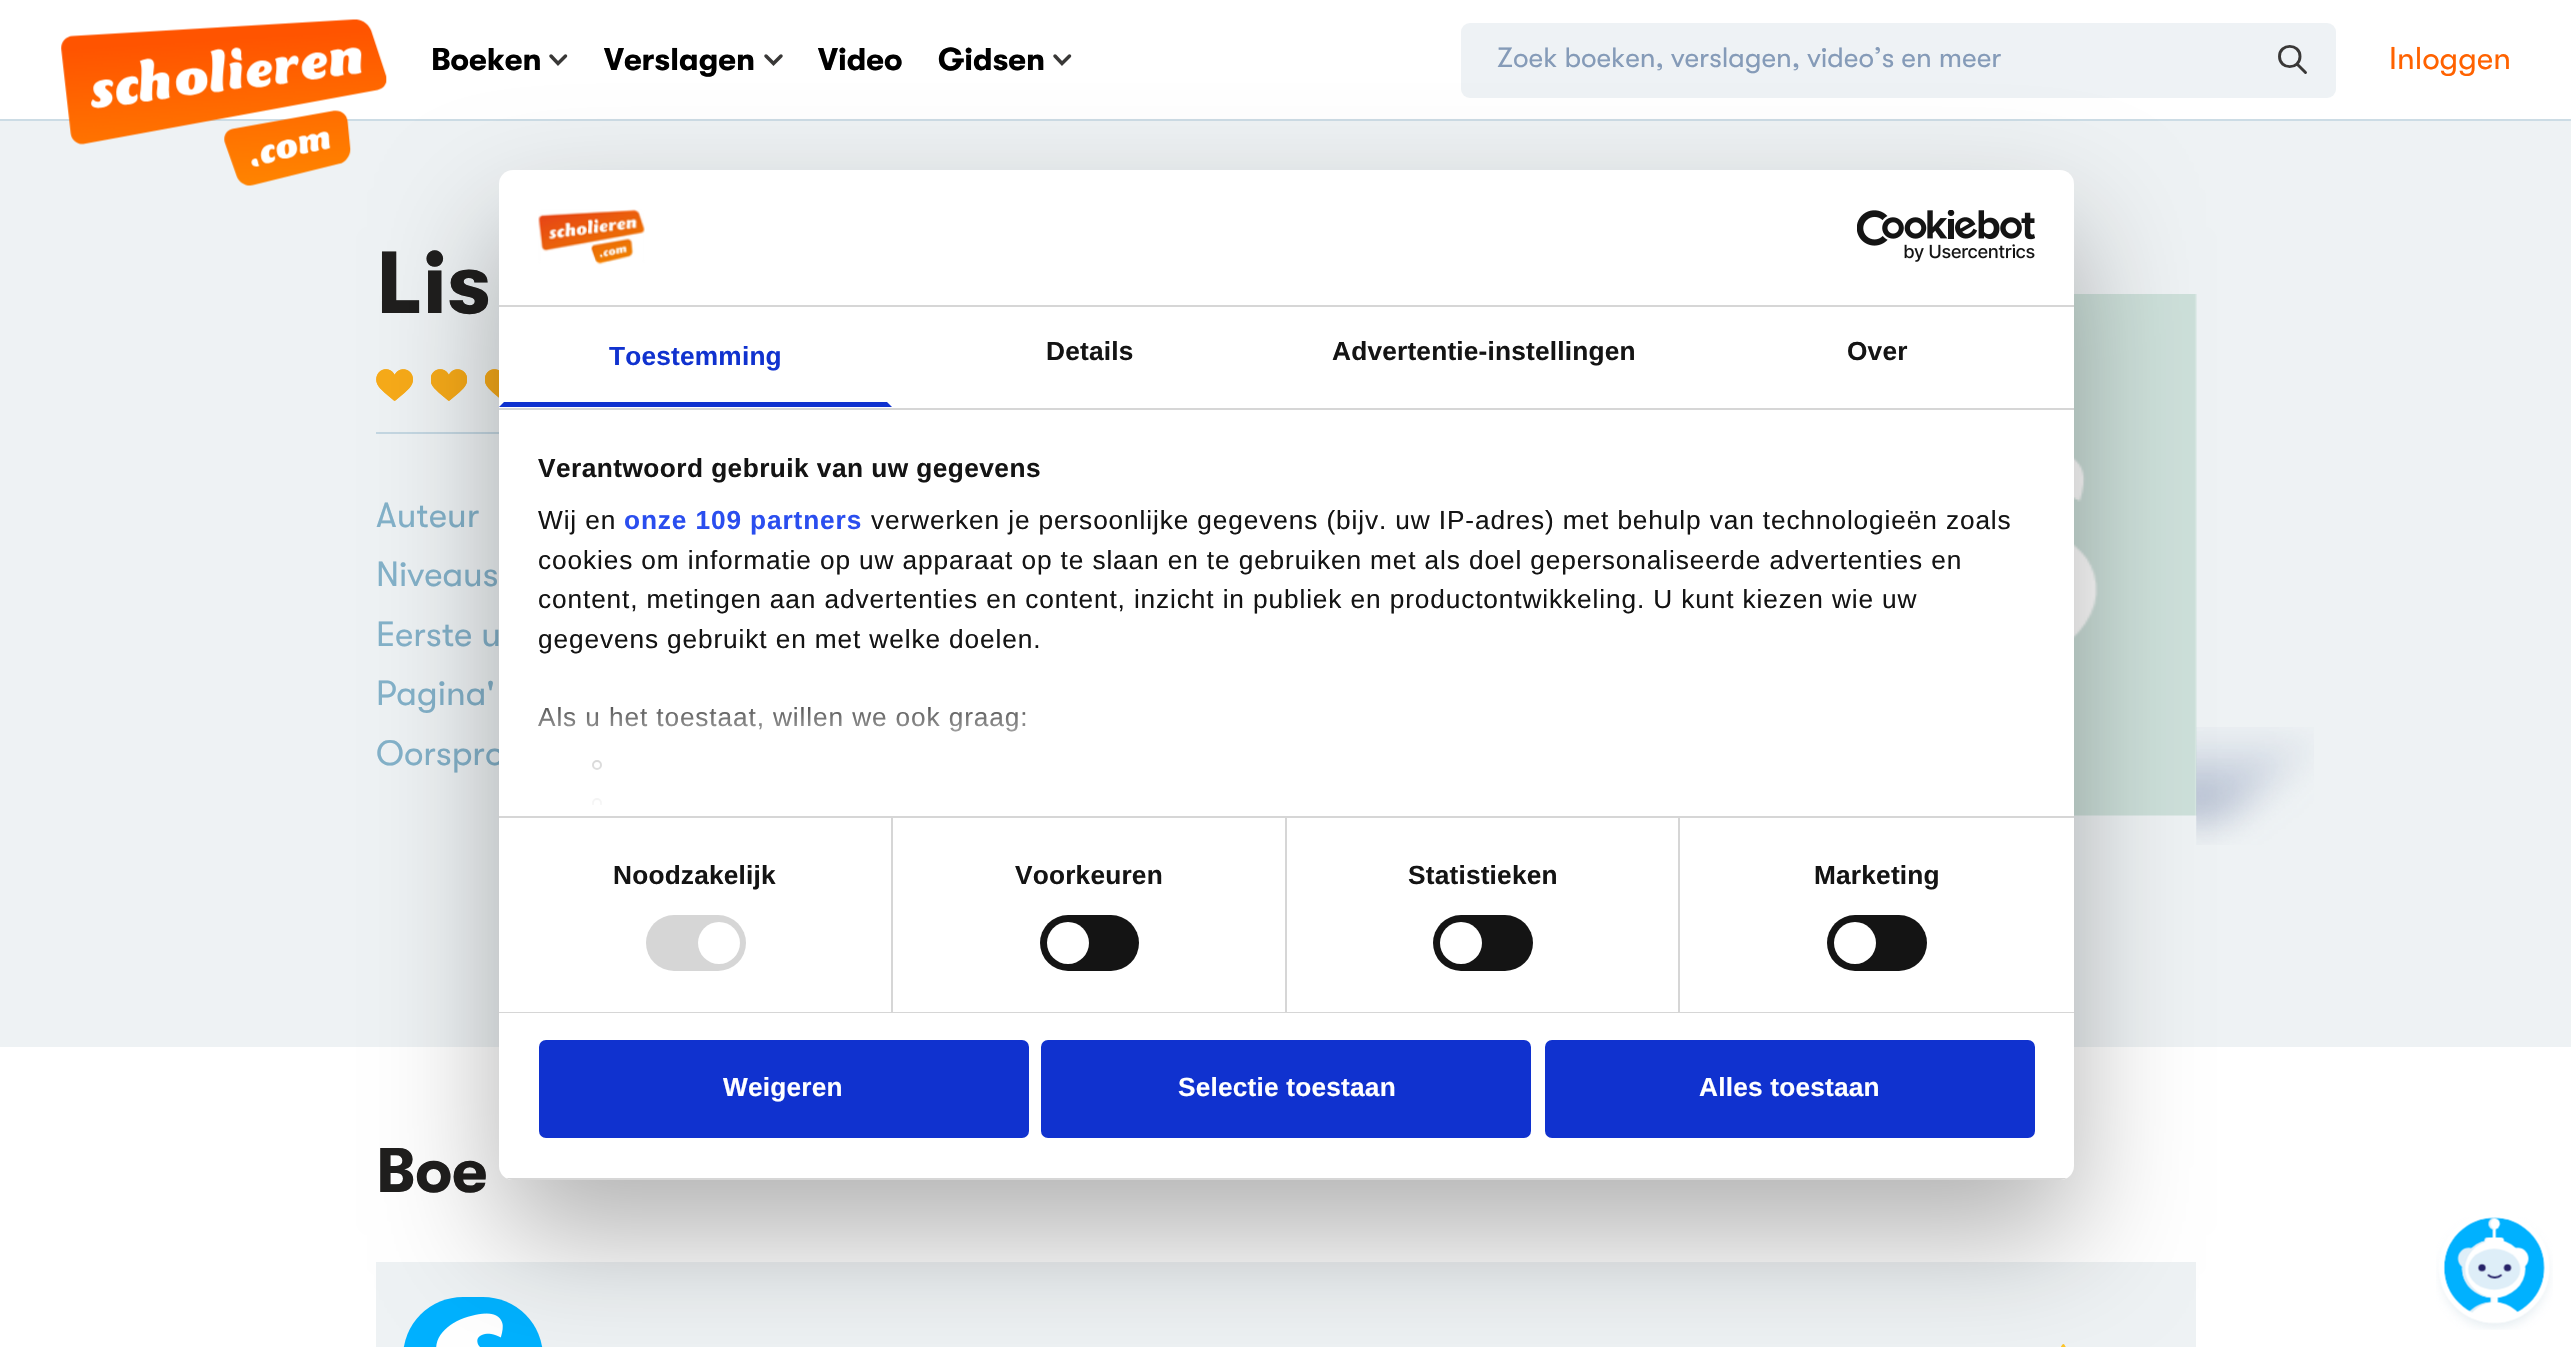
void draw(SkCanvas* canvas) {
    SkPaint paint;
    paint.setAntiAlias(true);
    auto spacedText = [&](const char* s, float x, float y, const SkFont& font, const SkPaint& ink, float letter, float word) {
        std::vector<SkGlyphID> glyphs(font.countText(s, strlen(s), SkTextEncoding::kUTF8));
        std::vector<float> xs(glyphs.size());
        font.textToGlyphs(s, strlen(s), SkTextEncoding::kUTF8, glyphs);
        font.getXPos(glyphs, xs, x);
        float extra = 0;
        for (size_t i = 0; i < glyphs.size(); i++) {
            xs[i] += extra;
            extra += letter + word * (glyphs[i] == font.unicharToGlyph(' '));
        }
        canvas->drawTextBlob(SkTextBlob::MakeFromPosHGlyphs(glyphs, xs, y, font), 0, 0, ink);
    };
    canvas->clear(0xFFFFFFFF);
    paint.setColor(0xFFCCDCE5);
    canvas->drawPath(SkPathBuilder().moveTo(0, 119).lineTo(0, 121).lineTo(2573, 121).lineTo(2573, 2).lineTo(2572, 2).lineTo(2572, 119).close().detach(), paint);
    paint.setColor(0xFFEEF2F4);
    canvas->drawRect(SkRect::MakeXYWH(0, 121, 2571, 926), paint);
    canvas->drawImageRect(SkImages::DeferredFromEncodedData(SkData::MakeFromFileName("img1.png")), SkRect::MakeXYWH(61, 19, 326, 167), SkSamplingOptions());
    SkFont font1(fontMgr->matchFamilyStyle("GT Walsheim", SkFontStyle::Bold()), 31.5f);
    font1.setSubpixel(true);
    paint.setColor(0xFF000000);
    canvas->drawString("Boeken", 431, 70, font1, paint);
    paint.setStyle(SkPaint::kStroke_Style);
    paint.setStrokeWidth(3.5f);
    paint.setStrokeCap(SkPaint::kRound_Cap);
    paint.setColor(0xFF393837);
    canvas->drawPath(SkPathBuilder().moveTo(565.5f, 56).lineTo(558, 63.5f).lineTo(551, 56).detach(), paint);
    paint.setStyle(SkPaint::kFill_Style);
    paint.setColor(0xFF000000);
    canvas->drawString("Verslagen", 604, 70, font1, paint);
    paint.setStyle(SkPaint::kStroke_Style);
    paint.setColor(0xFF393837);
    canvas->drawPath(SkPathBuilder().moveTo(781, 56).lineTo(773.5f, 63.5f).lineTo(766, 56).detach(), paint);
    paint.setStyle(SkPaint::kFill_Style);
    paint.setColor(0xFF000000);
    canvas->drawString("Video", 818, 70, font1, paint);
    canvas->drawString("Gidsen", 938, 70, font1, paint);
    paint.setStyle(SkPaint::kStroke_Style);
    paint.setColor(0xFF393837);
    canvas->drawPath(SkPathBuilder().moveTo(1069.5f, 56).lineTo(1062, 63.5f).lineTo(1055, 56).detach(), paint);
    paint.setStyle(SkPaint::kFill_Style);
    paint.setColor(0xFFEEF2F5);
    canvas->drawRoundRect(SkRect::MakeXYWH(1461, 23, 875, 75), 9, 9, paint);
    SkFont font2(fontMgr->matchFamilyStyle("GT Walsheim", SkFontStyle::Normal()), 28);
    font2.setSubpixel(true);
    paint.setColor(0xFF859BB8);
    canvas->drawString("Zoek boeken, verslagen, video’s en meer", 1497, 67, font2, paint);
    paint.setStyle(SkPaint::kStroke_Style);
    paint.setStrokeWidth(2.9f);
    paint.setStrokeJoin(SkPaint::kRound_Join);
    paint.setColor(0xFF393837);
    canvas->drawPath(SkPathBuilder().moveTo(2305.5f, 72.5f).lineTo(2297, 64).moveTo(2300, 56.5f).cubicTo(2300, 70, 2279.5f, 70, 2279.5f, 56.5f).cubicTo(2279.5f, 43, 2300, 43, 2300, 56.5f).close().detach(), paint);
    SkFont font3(fontMgr->matchFamilyStyle("GT Walsheim", SkFontStyle::Normal()), 31.5f);
    font3.setSubpixel(true);
    paint.setStyle(SkPaint::kFill_Style);
    paint.setColor(0xFFFF6200);
    canvas->drawString("Inloggen", 2389, 69, font3, paint);
    SkFont font4(fontMgr->matchFamilyStyle("GT Walsheim", SkFontStyle::Bold()), 88);
    font4.setSubpixel(true);
    paint.setColor(0xFF1F1E1D);
    canvas->drawString("Lis", 376, 313, font4, paint);
    canvas->drawImageRect(SkImages::DeferredFromEncodedData(SkData::MakeFromFileName("img2.png")), SkRect::MakeXYWH(376, 369, 37, 32), SkSamplingOptions());
    canvas->drawImageRect(SkImages::DeferredFromEncodedData(SkData::MakeFromFileName("img3.png")), SkRect::MakeXYWH(431, 369, 36, 32), SkSamplingOptions());
    canvas->drawImageRect(SkImages::DeferredFromEncodedData(SkData::MakeFromFileName("img4.png")), SkRect::MakeXYWH(485, 369, 14, 29), SkSamplingOptions());
    paint.setColor(0xFFC4D7E2);
    canvas->drawRect(SkRect::MakeXYWH(376, 432, 123, 2), paint);
    SkFont font5(fontMgr->matchFamilyStyle("GT Walsheim", SkFontStyle::Normal()), 35);
    font5.setSubpixel(true);
    paint.setColor(0xFF83B1C9);
    canvas->drawString("Auteur", 376, 527, font5, paint);
    canvas->drawString("Niveaus", 376, 586, font5, paint);
    canvas->drawString("Eerste u", 376, 646, font5, paint);
    canvas->drawString("Pagina'", 376, 705, font5, paint);
    canvas->drawString("Oorspro", 376, 765, font5, paint);
    canvas->drawImageRect(SkImages::DeferredFromEncodedData(SkData::MakeFromFileName("img5.png")), SkRect::MakeXYWH(2074, 294, 123, 522), SkSamplingOptions());
    canvas->drawImageRect(SkImages::DeferredFromEncodedData(SkData::MakeFromFileName("img6.png")), SkRect::MakeXYWH(2196, 727, 118, 118), SkSamplingOptions());
    SkFont font6(fontMgr->matchFamilyStyle("GT Walsheim", SkFontStyle::Bold()), 63);
    font6.setSubpixel(true);
    paint.setColor(0xFF1F1E1D);
    canvas->drawString("Boe", 376, 1192, font6, paint);
    paint.setColor(0xFFEEF2F4);
    canvas->drawRect(SkRect::MakeXYWH(376, 1262, 1820, 85), paint);
    paint.setColor(0xFF00B1FF);
    canvas->drawRoundRect(SkRect::MakeXYWH(403, 1297, 140, 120), 70, 70, paint);
    canvas->drawImageRect(SkImages::DeferredFromEncodedData(SkData::MakeFromFileName("img7.png")), SkRect::MakeXYWH(436, 1313, 67, 34), SkSamplingOptions());
    paint.setColor(0xFFFDC526);
    canvas->drawPath(SkPathBuilder(SkPathFillType::kEvenOdd).moveTo(2088, 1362).cubicTo(2088, 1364, 2078, 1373, 2076, 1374).cubicTo(2080, 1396, 2083, 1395, 2063, 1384).cubicTo(2043, 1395, 2047, 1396, 2050, 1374).cubicTo(2035, 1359, 2033, 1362, 2055, 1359).cubicTo(2065, 1339, 2062, 1339, 2071, 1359).cubicTo(2074, 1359, 2088, 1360, 2088, 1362).close().detach(), paint);
    paint.setColor(0x4D000000);
    paint.setMaskFilter(SkMaskFilter::MakeBlur(kNormal_SkBlurStyle, 59.5f));
    canvas->drawRoundRect(SkRect::MakeXYWH(499, 226, 1575, 1010), 14, 14, paint);
    paint.setMaskFilter(nullptr);
    paint.setColor(0xFFFFFFFF);
    canvas->drawRoundRect(SkRect::MakeXYWH(499, 170, 1575, 1010), 14, 14, paint);
    paint.setColor(0xFFD6D6D6);
    canvas->drawRect(SkRect::MakeXYWH(499, 305, 1575, 2), paint);
    canvas->drawImageRect(SkImages::DeferredFromEncodedData(SkData::MakeFromFileName("img8.png")), SkRect::MakeXYWH(538, 209, 107, 56), SkSamplingOptions());
    canvas->drawImageRect(SkImages::DeferredFromEncodedData(SkData::MakeFromFileName("img9.png")), SkRect::MakeXYWH(1857, 210, 178, 52), SkSamplingOptions());
    canvas->drawRect(SkRect::MakeXYWH(499, 408, 1575, 2), paint);
    paint.setColor(0xFF1032CF);
    canvas->drawPath(SkPathBuilder().moveTo(892, 407).lineTo(499, 407).lineTo(504, 402).lineTo(887, 402).close().detach(), paint);
    SkFont font7(fontMgr->matchFamilyStyle("Liberation Sans", SkFontStyle::Bold()), 26.25f);
    font7.setSubpixel(true);
    spacedText("Toestemming", 609, 365, font7, paint, 0.2f, 0);
    paint.setColor(0xFF141414);
    spacedText("Details", 1046, 360, font7, paint, 0.2f, 0);
    spacedText("Advertentie-instellingen", 1332, 360, font7, paint, 0.2f, 0);
    spacedText("Over", 1847, 360, font7, paint, 0.2f, 0);
    paint.setColor(0xFFD6D6D6);
    canvas->drawRect(SkRect::MakeXYWH(891, 817, 2, 195), paint);
    canvas->drawRect(SkRect::MakeXYWH(1285, 817, 2, 195), paint);
    canvas->drawRect(SkRect::MakeXYWH(1678, 817, 2, 195), paint);
    canvas->drawRect(SkRect::MakeXYWH(499, 816, 1575, 2), paint);
    paint.setColor(0xFF141414);
    spacedText("Verantwoord gebruik van uw gegevens", 538, 477, font7, paint, 0.45f, 0);
    SkFont font8(fontMgr->matchFamilyStyle("Liberation Sans", SkFontStyle::Normal()), 26.25f);
    font8.setSubpixel(true);
    spacedText("Wij en", 538, 529, font8, paint, 0.88f, 0);
    paint.setColor(0xFF2A4EEF);
    spacedText("onze 109 partners", 624, 529, font7, paint, 0.88f, 0);
    paint.setColor(0xFF141414);
    spacedText("verwerken je persoonlijke gegevens (bijv. uw IP-adres) met behulp van technologieën zoals", 871, 529, font8, paint, 0.88f, 0);
    spacedText("cookies om informatie op uw apparaat op te slaan en te gebruiken met als doel gepersonaliseerde advertenties en", 538, 569, font8, paint, 0.88f, 0);
    spacedText("content, metingen aan advertenties en content, inzicht in publiek en productontwikkeling. U kunt kiezen wie uw", 538, 608, font8, paint, 0.88f, 0);
    spacedText("gegevens gebruikt en met welke doelen.", 538, 648, font8, paint, 0.88f, 0);
    spacedText("Als u het toestaat, willen we ook graag:", 538, 726, font8, paint, 0.88f, 0);
    paint.setStyle(SkPaint::kStroke_Style);
    paint.setStrokeWidth(2);
    paint.setStrokeCap(SkPaint::kButt_Cap);
    paint.setStrokeJoin(SkPaint::kMiter_Join);
    canvas->drawCircle(597, 765, 4, paint);
    canvas->save();
    canvas->clipRect(SkRect::MakeXYWH(509, 420, 1554, 385));
    canvas->drawRoundRect(SkRect::MakeXYWH(593, 799, 8, 9), 4, 4, paint);
    canvas->restore();
    paint.setStyle(SkPaint::kFill_Style);
    {
        const SkColor colors[] = {0xFFFFFFFF, 0xCCFFFFFF, 0x00FFFFFF};
        const float stops[] = {0, 0.5f, 1};
        const SkPoint ends[] = {{1269, 815}, {1269, 684}};
        paint.setShader(SkGradientShader::MakeLinear(ends, colors, stops, 3, SkTileMode::kClamp));
        paint.setAlpha(255);
    }
    canvas->drawRect(SkRect::MakeXYWH(538, 707, 488, 98), paint);
    paint.setShader(nullptr);
    paint.setColor(0xFFD6D6D6);
    canvas->drawRect(SkRect::MakeXYWH(499, 1012, 1575, 1), paint);
    paint.setColor(0xFF141414);
    spacedText("Noodzakelijk", 613, 884, font7, paint, 0.2f, 0);
    paint.setColor(0xFFD6D6D6);
    canvas->drawRoundRect(SkRect::MakeXYWH(646, 915, 100, 56), 28, 28, paint);
    paint.setColor(0xFFFFFFFF);
    canvas->drawCircle(719, 943, 21, paint);
    paint.setColor(0xFF141414);
    spacedText("Voorkeuren", 1015, 884, font7, paint, 0.2f, 0);
    canvas->drawRoundRect(SkRect::MakeXYWH(1040, 915, 99, 56), 28, 28, paint);
    paint.setColor(0xFFFFFFFF);
    canvas->drawCircle(1068, 943, 21, paint);
    paint.setColor(0xFF141414);
    spacedText("Statistieken", 1408, 884, font7, paint, 0.2f, 0);
    canvas->drawRoundRect(SkRect::MakeXYWH(1433, 915, 100, 56), 28, 28, paint);
    paint.setColor(0xFFFFFFFF);
    canvas->drawCircle(1461, 943, 21, paint);
    paint.setColor(0xFF141414);
    spacedText("Marketing", 1814, 884, font7, paint, 0.2f, 0);
    canvas->drawRoundRect(SkRect::MakeXYWH(1827, 915, 100, 56), 28, 28, paint);
    paint.setColor(0xFFFFFFFF);
    canvas->drawCircle(1855, 943, 21, paint);
    canvas->save();
    canvas->clipPath(SkPathBuilder().moveTo(513, 170).lineTo(2060, 170).cubicTo(2067.5f, 170, 2074, 176.5f, 2074, 184).lineTo(2074, 1166).cubicTo(2074, 1173.5f, 2067.5f, 1180, 2060, 1180).lineTo(513, 1180).cubicTo(505.5f, 1180, 499, 1173.5f, 499, 1166).lineTo(499, 184).cubicTo(499, 176.5f, 505.5f, 170, 513, 170).close().detach(), true);
    paint.setColor(0xFFD6D6D6);
    canvas->drawRect(SkRect::MakeXYWH(499, 1178, 1575, 2), paint);
    canvas->restore();
    paint.setColor(0xFF1032CF);
    canvas->drawRoundRect(SkRect::MakeXYWH(541, 1042, 486, 94), 5, 5, paint);
    paint.setStyle(SkPaint::kStroke_Style);
    paint.setStrokeWidth(4);
    canvas->drawRoundRect(SkRect::MakeXYWH(541, 1042, 486, 94), 5, 5, paint);
    paint.setStyle(SkPaint::kFill_Style);
    paint.setColor(0xFFFFFFFF);
    spacedText("Weigeren", 723, 1096, font7, paint, 0.2f, 0);
    paint.setColor(0xFF1032CF);
    canvas->drawRoundRect(SkRect::MakeXYWH(1043, 1042, 486, 94), 5, 5, paint);
    paint.setStyle(SkPaint::kStroke_Style);
    canvas->drawRoundRect(SkRect::MakeXYWH(1043, 1042, 486, 94), 5, 5, paint);
    paint.setStyle(SkPaint::kFill_Style);
    paint.setColor(0xFFFFFFFF);
    spacedText("Selectie toestaan", 1178, 1096, font7, paint, 0.2f, 0);
    paint.setColor(0xFF1032CF);
    canvas->drawRoundRect(SkRect::MakeXYWH(1547, 1042, 486, 94), 5, 5, paint);
    paint.setStyle(SkPaint::kStroke_Style);
    canvas->drawRoundRect(SkRect::MakeXYWH(1547, 1042, 486, 94), 5, 5, paint);
    paint.setStyle(SkPaint::kFill_Style);
    paint.setColor(0xFFFFFFFF);
    spacedText("Alles toestaan", 1699, 1096, font7, paint, 0.2f, 0);
    canvas->drawImageRect(SkImages::DeferredFromEncodedData(SkData::MakeFromFileName("img10.png")), SkRect::MakeXYWH(2436, 1217, 117, 113), SkSamplingOptions());
}
